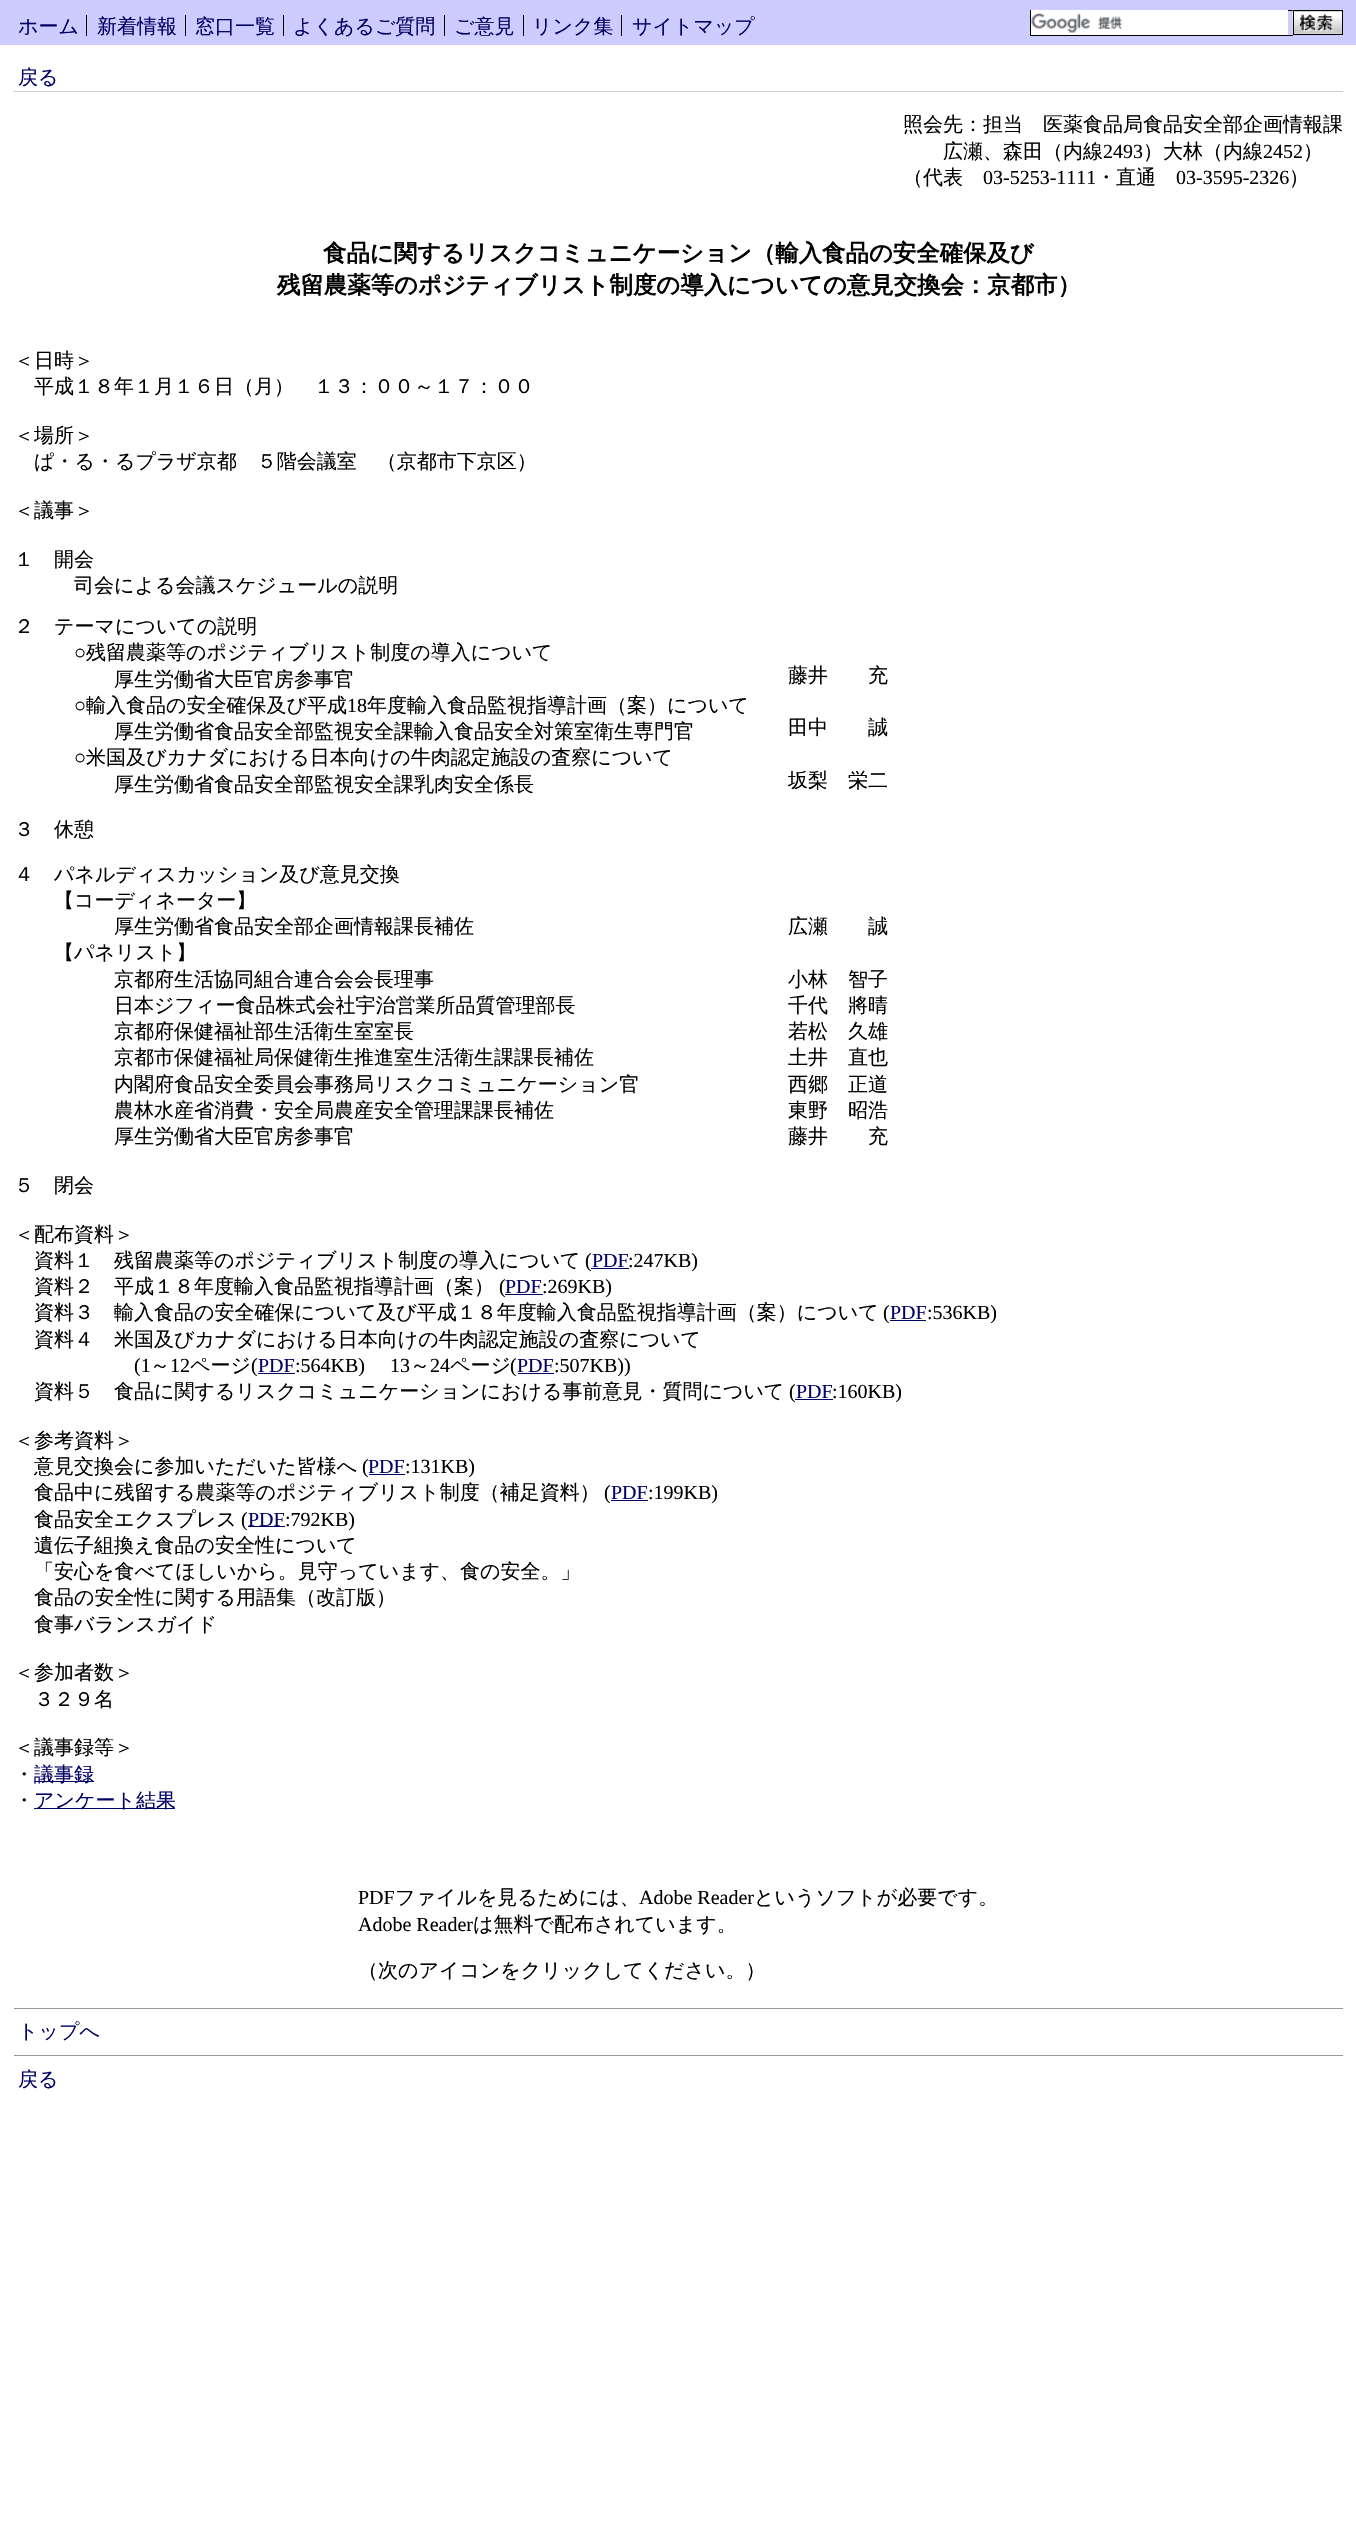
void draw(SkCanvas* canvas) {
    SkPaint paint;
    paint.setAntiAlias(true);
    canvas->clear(0xFFFFFFFF);
    paint.setColor(0xFFCCCCFF);
    canvas->drawRect(SkRect::MakeXYWH(0, 0, 1356, 45), paint);
    SkFont font1(fontMgr->matchFamilyStyle("WenQuanYi Zen Hei", SkFontStyle(500, SkFontStyle::kNormal_Width, SkFontStyle::kUpright_Slant)), 20);
    font1.setSubpixel(true);
    paint.setColor(0xFF000066);
    canvas->drawString("ホーム", 18, 33, font1, paint);
    paint.setColor(0xFF000000);
    canvas->drawRect(SkRect::MakeXYWH(86, 15, 1, 21), paint);
    paint.setColor(0xFF000066);
    canvas->drawString("新着情報", 97, 33, font1, paint);
    paint.setColor(0xFF000000);
    canvas->drawRect(SkRect::MakeXYWH(185, 15, 1, 21), paint);
    paint.setColor(0xFF000066);
    canvas->drawString("窓口一覧", 195, 33, font1, paint);
    paint.setColor(0xFF000000);
    canvas->drawRect(SkRect::MakeXYWH(283, 15, 1, 21), paint);
    paint.setColor(0xFF000066);
    canvas->drawString("よくあるご質問", 293, 33, font1, paint);
    paint.setColor(0xFF000000);
    canvas->drawRect(SkRect::MakeXYWH(444, 15, 1, 21), paint);
    paint.setColor(0xFF000066);
    canvas->drawString("ご意見", 454, 33, font1, paint);
    paint.setColor(0xFF000000);
    canvas->drawRect(SkRect::MakeXYWH(523, 15, 1, 21), paint);
    paint.setColor(0xFF000066);
    canvas->drawString("リンク集", 532, 33, font1, paint);
    paint.setColor(0xFF000000);
    canvas->drawRect(SkRect::MakeXYWH(621, 15, 1, 21), paint);
    paint.setColor(0xFF000066);
    canvas->drawString("サイトマップ", 632, 33, font1, paint);
    paint.setColor(0xFF000000);
    canvas->drawRect(SkRect::MakeXYWH(1288, 10, 5, 1), paint);
    canvas->drawRect(SkRect::MakeXYWH(1030, 35, 263, 1), paint);
    canvas->drawRect(SkRect::MakeXYWH(1030, 10, 1, 26), paint);
    paint.setColor(0xFFFFFFFF);
    canvas->drawRect(SkRect::MakeXYWH(1031, 10, 257, 25), paint);
    canvas->drawImageRect(SkImages::DeferredFromEncodedData(SkData::MakeFromFileName("img1.png")), SkRect::MakeXYWH(1031, 13, 92, 20), SkSamplingOptions());
    canvas->drawImageRect(SkImages::DeferredFromEncodedData(SkData::MakeFromFileName("img2.png")), SkRect::MakeXYWH(1292, 10, 50, 25), SkSamplingOptions());
    paint.setStyle(SkPaint::kStroke_Style);
    paint.setStrokeWidth(1);
    paint.setColor(0xFF000000);
    canvas->drawRect(SkRect::MakeXYWH(1293.5f, 10.5f, 49, 24), paint);
    paint.setStyle(SkPaint::kFill_Style);
    paint.setColor(0xFFCCCCCC);
    canvas->drawRect(SkRect::MakeXYWH(14, 91, 1329, 1), paint);
    paint.setColor(0xFF000066);
    canvas->drawString("戻る", 18, 84, font1, paint);
    paint.setColor(0xFF000000);
    canvas->drawString("照会先：担当　医薬食品局食品安全部企画情報課", 903, 131, font1, paint);
    canvas->drawString("広瀬、森田（内線", 943, 158, font1, paint);
    SkFont font2(fontMgr->matchFamilyStyle("Liberation Serif", SkFontStyle::Normal()), 20);
    font2.setSubpixel(true);
    canvas->drawString("2493", 1103, 158, font2, paint);
    canvas->drawString("）大林（内線", 1143, 158, font1, paint);
    canvas->drawString("2452", 1263, 158, font2, paint);
    canvas->drawString("）", 1303, 158, font1, paint);
    canvas->drawString("（代表", 903, 184, font1, paint);
    canvas->drawString("03-5253-1111", 983, 184, font2, paint);
    canvas->drawString("・直通", 1096, 184, font1, paint);
    canvas->drawString("03-3595-2326", 1176, 184, font2, paint);
    canvas->drawString("）", 1289, 184, font1, paint);
    SkFont font3(fontMgr->matchFamilyStyle("WenQuanYi Zen Hei", SkFontStyle::Bold()), 23.4f);
    font3.setSubpixel(true);
    canvas->drawString("食品に関するリスクコミュニケーション（輸入食品の安全確保及び", 323, 261, font3, paint);
    canvas->drawString("残留農薬等のポジティブリスト制度の導入についての意見交換会：京都市）", 277, 293, font3, paint);
    canvas->drawString("＜日時＞", 14, 367, font1, paint);
    canvas->drawString("平成１８年１月１６日（月）　１３：００～１７：００", 34, 393, font1, paint);
    canvas->drawString("＜場所＞", 14, 442, font1, paint);
    canvas->drawString("ぱ・る・るプラザ京都　５階会議室　（京都市下京区）", 34, 468, font1, paint);
    canvas->drawString("＜議事＞", 14, 517, font1, paint);
    canvas->drawString("１", 14, 566, font1, paint);
    canvas->drawString("開会", 54, 566, font1, paint);
    canvas->drawString("司会による会議スケジュールの説明", 74, 592, font1, paint);
    canvas->drawString("２", 14, 633, font1, paint);
    canvas->drawString("テーマについての説明", 54, 633, font1, paint);
    canvas->drawString("○", 74, 659, font2, paint);
    canvas->drawString("残留農薬等のポジティブリスト制度の導入について", 86, 659, font1, paint);
    canvas->drawString("厚生労働省大臣官房参事官", 114, 686, font1, paint);
    canvas->drawString("藤井　　充", 788, 682, font1, paint);
    canvas->drawString("○", 74, 712, font2, paint);
    canvas->drawString("輸入食品の安全確保及び平成", 86, 712, font1, paint);
    canvas->drawString("18", 347, 712, font2, paint);
    canvas->drawString("年度輸入食品監視指導計画（案）について", 367, 712, font1, paint);
    canvas->drawString("厚生労働省食品安全部監視安全課輸入食品安全対策室衛生専門官", 114, 738, font1, paint);
    canvas->drawString("田中　　誠", 788, 734, font1, paint);
    canvas->drawString("○", 74, 764, font2, paint);
    canvas->drawString("米国及びカナダにおける日本向けの牛肉認定施設の査察について", 86, 764, font1, paint);
    canvas->drawString("厚生労働省食品安全部監視安全課乳肉安全係長", 114, 791, font1, paint);
    canvas->drawString("坂梨　栄二", 788, 787, font1, paint);
    canvas->drawString("３", 14, 836, font1, paint);
    canvas->drawString("休憩", 54, 836, font1, paint);
    canvas->drawString("４", 14, 881, font1, paint);
    canvas->drawString("パネルディスカッション及び意見交換", 54, 881, font1, paint);
    canvas->drawString("【コーディネーター】", 54, 907, font1, paint);
    canvas->drawString("厚生労働省食品安全部企画情報課長補佐", 114, 933, font1, paint);
    canvas->drawString("広瀬　　誠", 788, 933, font1, paint);
    canvas->drawString("【パネリスト】", 54, 959, font1, paint);
    canvas->drawString("京都府生活協同組合連合会会長理事", 114, 986, font1, paint);
    canvas->drawString("小林　智子", 788, 986, font1, paint);
    canvas->drawString("日本ジフィー食品株式会社宇治営業所品質管理部長", 114, 1012, font1, paint);
    canvas->drawString("千代　將晴", 788, 1012, font1, paint);
    canvas->drawString("京都府保健福祉部生活衛生室室長", 114, 1038, font1, paint);
    canvas->drawString("若松　久雄", 788, 1038, font1, paint);
    canvas->drawString("京都市保健福祉局保健衛生推進室生活衛生課課長補佐", 114, 1064, font1, paint);
    canvas->drawString("土井　直也", 788, 1064, font1, paint);
    canvas->drawString("内閣府食品安全委員会事務局リスクコミュニケーション官", 114, 1091, font1, paint);
    canvas->drawString("西郷　正道", 788, 1091, font1, paint);
    canvas->drawString("農林水産省消費・安全局農産安全管理課課長補佐", 114, 1117, font1, paint);
    canvas->drawString("東野　昭浩", 788, 1117, font1, paint);
    canvas->drawString("厚生労働省大臣官房参事官", 114, 1143, font1, paint);
    canvas->drawString("藤井　　充", 788, 1143, font1, paint);
    canvas->drawString("５", 14, 1192, font1, paint);
    canvas->drawString("閉会", 54, 1192, font1, paint);
    canvas->drawString("＜配布資料＞", 14, 1241, font1, paint);
    canvas->drawString("資料１", 34, 1267, font1, paint);
    canvas->drawString("残留農薬等のポジティブリスト制度の導入について", 114, 1267, font1, paint);
    canvas->drawString("(", 585, 1267, font2, paint);
    paint.setColor(0xFF000066);
    canvas->drawString("PDF", 592, 1267, font2, paint);
    canvas->drawRect(SkRect::MakeXYWH(591, 1268, 38, 1), paint);
    paint.setColor(0xFF000000);
    canvas->drawString(":247KB)", 628, 1267, font2, paint);
    canvas->drawString("資料２", 34, 1293, font1, paint);
    canvas->drawString("平成１８年度輸入食品監視指導計画（案）", 114, 1293, font1, paint);
    canvas->drawString("(", 499, 1293, font2, paint);
    paint.setColor(0xFF000066);
    canvas->drawString("PDF", 505, 1293, font2, paint);
    canvas->drawRect(SkRect::MakeXYWH(505, 1294, 38, 1), paint);
    paint.setColor(0xFF000000);
    canvas->drawString(":269KB)", 542, 1293, font2, paint);
    canvas->drawString("資料３", 34, 1319, font1, paint);
    canvas->drawString("輸入食品の安全確保について及び平成１８年度輸入食品監視指導計画（案）について", 114, 1319, font1, paint);
    canvas->drawString("(", 883, 1319, font2, paint);
    paint.setColor(0xFF000066);
    canvas->drawString("PDF", 890, 1319, font2, paint);
    canvas->drawRect(SkRect::MakeXYWH(890, 1320, 36, 1), paint);
    paint.setColor(0xFF000000);
    canvas->drawString(":536KB)", 927, 1319, font2, paint);
    canvas->drawString("資料４", 34, 1346, font1, paint);
    canvas->drawString("米国及びカナダにおける日本向けの牛肉認定施設の査察について", 114, 1346, font1, paint);
    canvas->drawString("(1", 134, 1372, font2, paint);
    canvas->drawString("～", 150, 1372, font1, paint);
    canvas->drawString("12", 170, 1372, font2, paint);
    canvas->drawString("ページ", 190, 1372, font1, paint);
    canvas->drawString("(", 251, 1372, font2, paint);
    paint.setColor(0xFF000066);
    canvas->drawString("PDF", 258, 1372, font2, paint);
    canvas->drawRect(SkRect::MakeXYWH(258, 1373, 37, 1), paint);
    paint.setColor(0xFF000000);
    canvas->drawString(":564KB)", 295, 1372, font2, paint);
    canvas->drawString("13", 390, 1372, font2, paint);
    canvas->drawString("～", 410, 1372, font1, paint);
    canvas->drawString("24", 430, 1372, font2, paint);
    canvas->drawString("ページ", 450, 1372, font1, paint);
    canvas->drawString("(", 510, 1372, font2, paint);
    paint.setColor(0xFF000066);
    canvas->drawString("PDF", 517, 1372, font2, paint);
    canvas->drawRect(SkRect::MakeXYWH(518, 1373, 36, 1), paint);
    paint.setColor(0xFF000000);
    canvas->drawString(":507KB))", 554, 1372, font2, paint);
    canvas->drawString("資料５", 34, 1398, font1, paint);
    canvas->drawString("食品に関するリスクコミュニケーションにおける事前意見・質問について", 114, 1398, font1, paint);
    canvas->drawString("(", 789, 1398, font2, paint);
    paint.setColor(0xFF000066);
    canvas->drawString("PDF", 796, 1398, font2, paint);
    canvas->drawRect(SkRect::MakeXYWH(795, 1399, 38, 1), paint);
    paint.setColor(0xFF000000);
    canvas->drawString(":160KB)", 832, 1398, font2, paint);
    canvas->drawString("＜参考資料＞", 14, 1447, font1, paint);
    canvas->drawString("意見交換会に参加いただいた皆様へ", 34, 1473, font1, paint);
    canvas->drawString("(", 362, 1473, font2, paint);
    paint.setColor(0xFF000066);
    canvas->drawString("PDF", 368, 1473, font2, paint);
    canvas->drawRect(SkRect::MakeXYWH(369, 1474, 36, 1), paint);
    paint.setColor(0xFF000000);
    canvas->drawString(":131KB)", 405, 1473, font2, paint);
    canvas->drawString("食品中に残留する農薬等のポジティブリスト制度（補足資料）", 34, 1499, font1, paint);
    canvas->drawString("(", 604, 1499, font2, paint);
    paint.setColor(0xFF000066);
    canvas->drawString("PDF", 611, 1499, font2, paint);
    canvas->drawRect(SkRect::MakeXYWH(611, 1500, 37, 1), paint);
    paint.setColor(0xFF000000);
    canvas->drawString(":199KB)", 648, 1499, font2, paint);
    canvas->drawString("食品安全エクスプレス", 34, 1526, font1, paint);
    canvas->drawString("(", 241, 1526, font2, paint);
    paint.setColor(0xFF000066);
    canvas->drawRect(SkRect::MakeXYWH(248, 1526, 37, 1), paint);
    canvas->drawString("PDF", 248, 1526, font2, paint);
    paint.setColor(0xFF000000);
    canvas->drawString(":792KB)", 285, 1526, font2, paint);
    canvas->drawString("遺伝子組換え食品の安全性について", 34, 1552, font1, paint);
    canvas->drawString("「安心を食べてほしいから。見守っています、食の安全。」", 34, 1578, font1, paint);
    canvas->drawString("食品の安全性に関する用語集（改訂版）", 34, 1604, font1, paint);
    canvas->drawString("食事バランスガイド", 34, 1631, font1, paint);
    canvas->drawString("＜参加者数＞", 14, 1679, font1, paint);
    canvas->drawString("３２９名", 34, 1706, font1, paint);
    canvas->drawString("＜議事録等＞", 14, 1754, font1, paint);
    canvas->drawString("・", 14, 1781, font1, paint);
    paint.setColor(0xFF000066);
    canvas->drawRect(SkRect::MakeXYWH(34, 1781, 60, 1), paint);
    canvas->drawString("議事録", 34, 1781, font1, paint);
    paint.setColor(0xFF000000);
    canvas->drawString("・", 14, 1807, font1, paint);
    paint.setColor(0xFF000066);
    canvas->drawRect(SkRect::MakeXYWH(34, 1808, 141, 1), paint);
    canvas->drawString("アンケート結果", 34, 1807, font1, paint);
    paint.setColor(0xFF000000);
    canvas->drawString("PDF", 358, 1904, font2, paint);
    canvas->drawString("ファイルを見るためには、", 395, 1904, font1, paint);
    canvas->drawString("Adobe Reader", 639, 1904, font2, paint);
    canvas->drawString("というソフトが必要です。", 754, 1904, font1, paint);
    canvas->drawString("Adobe Reader", 358, 1931, font2, paint);
    canvas->drawString("は無料で配布されています。", 473, 1931, font1, paint);
    canvas->drawString("（次のアイコンをクリックしてください。）", 358, 1977, font1, paint);
    paint.setColor(0xFF999999);
    canvas->drawRect(SkRect::MakeXYWH(14, 2008, 1329, 1), paint);
    paint.setColor(0xFF000066);
    canvas->drawString("トップへ", 18, 2038, font1, paint);
    paint.setColor(0xFF999999);
    canvas->drawRect(SkRect::MakeXYWH(14, 2055, 1329, 1), paint);
    paint.setColor(0xFF000066);
    canvas->drawString("戻る", 18, 2086, font1, paint);
}
